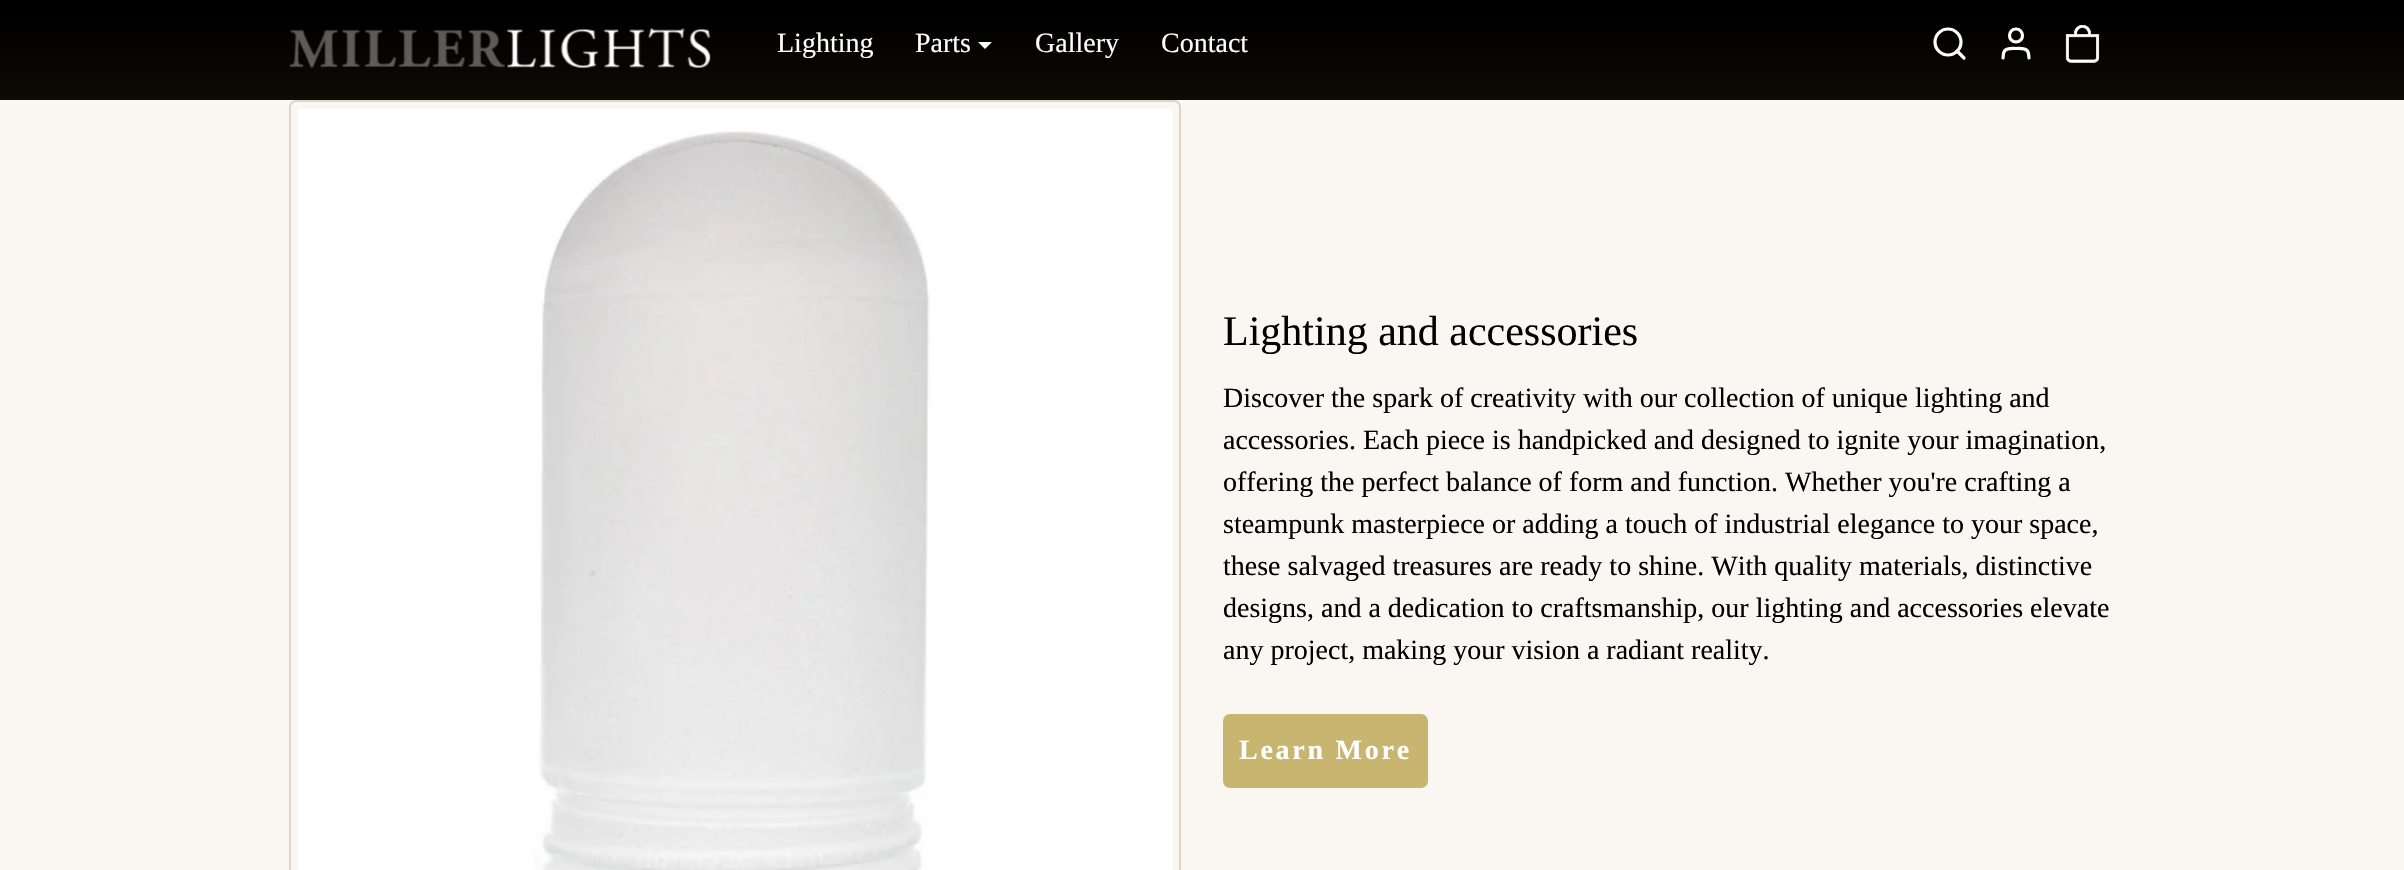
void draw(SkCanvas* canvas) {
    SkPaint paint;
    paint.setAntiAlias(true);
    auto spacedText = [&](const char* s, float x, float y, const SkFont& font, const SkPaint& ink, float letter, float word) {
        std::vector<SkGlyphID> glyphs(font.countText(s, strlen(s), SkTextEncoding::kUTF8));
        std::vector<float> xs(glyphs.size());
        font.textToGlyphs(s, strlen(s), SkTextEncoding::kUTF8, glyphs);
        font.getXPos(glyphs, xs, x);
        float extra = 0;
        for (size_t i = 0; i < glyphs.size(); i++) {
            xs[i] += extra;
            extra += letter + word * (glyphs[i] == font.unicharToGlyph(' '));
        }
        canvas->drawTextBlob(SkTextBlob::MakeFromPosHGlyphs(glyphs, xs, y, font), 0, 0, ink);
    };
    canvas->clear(0xFFFAF7F2);
    {
        const SkColor colors[] = {0xFF49371B, 0xFF000000};
        const float stops[] = {0.5f, 0.98f};
        const SkPoint ends[] = {{1202, 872}, {1202, 0}};
        paint.setShader(SkGradientShader::MakeLinear(ends, colors, stops, 2, SkTileMode::kClamp));
        paint.setAlpha(255);
    }
    canvas->drawRect(SkRect::MakeXYWH(0, 0, 2404, 100), paint);
    canvas->drawImageRect(SkImages::DeferredFromEncodedData(SkData::MakeFromFileName("img1.png")), SkRect::MakeXYWH(289, 28, 422, 40), SkSamplingOptions());
    SkFont font1(fontMgr->matchFamilyStyle("Liberation Serif", SkFontStyle::Normal()), 28);
    font1.setSubpixel(true);
    paint.setShader(nullptr);
    paint.setColor(0xFFFFFFFF);
    canvas->drawString("Lighting", 777, 52, font1, paint);
    canvas->drawString("Parts", 915, 52, font1, paint);
    canvas->drawPath(SkPathBuilder().moveTo(978, 42).lineTo(992, 42).lineTo(985, 49).close().detach(), paint);
    canvas->drawString("Gallery", 1035, 52, font1, paint);
    canvas->drawString("Contact", 1161, 52, font1, paint);
    paint.setStyle(SkPaint::kStroke_Style);
    paint.setStrokeWidth(3.2f);
    canvas->drawCircle(1948, 42, 13, paint);
    paint.setStrokeCap(SkPaint::kRound_Cap);
    paint.setStrokeJoin(SkPaint::kRound_Join);
    canvas->drawPath(SkPathBuilder().moveTo(1964, 58).lineTo(1957, 51).detach(), paint);
    canvas->drawPath(SkPathBuilder().moveTo(2029, 58).lineTo(2028.5f, 53.5f).cubicTo(2027.5f, 47.5f, 2020.5f, 48.5f, 2016, 48.5f).cubicTo(2011.5f, 48.5f, 2004.5f, 47.5f, 2003.5f, 53.5f).lineTo(2003, 58).detach(), paint);
    paint.setStrokeCap(SkPaint::kButt_Cap);
    paint.setStrokeJoin(SkPaint::kMiter_Join);
    canvas->drawCircle(2016, 35.5f, 6.5f, paint);
    canvas->drawImageRect(SkImages::DeferredFromEncodedData(SkData::MakeFromFileName("img2.png")), SkRect::MakeXYWH(2065, 25, 35, 38), SkSamplingOptions());
    paint.setStrokeWidth(2);
    paint.setColor(0xFFDCD5C8);
    canvas->drawRoundRect(SkRect::MakeXYWH(290, 101, 890, 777), 6, 6, paint);
    canvas->drawImageRect(SkImages::DeferredFromEncodedData(SkData::MakeFromFileName("img3.png")), SkRect::MakeXYWH(298, 109, 875, 761), SkSamplingOptions());
    SkFont font2(fontMgr->matchFamilyStyle("Liberation Serif", SkFontStyle::Normal()), 42);
    font2.setSubpixel(true);
    paint.setStyle(SkPaint::kFill_Style);
    paint.setColor(0xFF000000);
    canvas->drawString("Lighting and accessories", 1223, 345, font2, paint);
    canvas->drawString("Discover the spark of creativity with our collection of unique lighting and", 1223, 407, font1, paint);
    canvas->drawString("accessories. Each piece is handpicked and designed to ignite your imagination,", 1223, 449, font1, paint);
    canvas->drawString("offering the perfect balance of form and function. Whether you're crafting a", 1223, 491, font1, paint);
    canvas->drawString("steampunk masterpiece or adding a touch of industrial elegance to your space,", 1223, 533, font1, paint);
    canvas->drawString("these salvaged treasures are ready to shine. With quality materials, distinctive", 1223, 575, font1, paint);
    canvas->drawString("designs, and a dedication to craftsmanship, our lighting and accessories elevate", 1223, 617, font1, paint);
    canvas->drawString("any project, making your vision a radiant reality.", 1223, 659, font1, paint);
    paint.setColor(0xFFC7B570);
    canvas->drawRoundRect(SkRect::MakeXYWH(1224, 715, 203, 72), 6, 6, paint);
    paint.setStyle(SkPaint::kStroke_Style);
    canvas->drawRoundRect(SkRect::MakeXYWH(1224, 715, 203, 72), 6, 6, paint);
    SkFont font3(fontMgr->matchFamilyStyle("Liberation Serif", SkFontStyle::Bold()), 28);
    font3.setSubpixel(true);
    paint.setStyle(SkPaint::kFill_Style);
    paint.setColor(0xFFFFFFFF);
    spacedText("Learn More", 1239, 759, font3, paint, 2.75f, 0);
}
